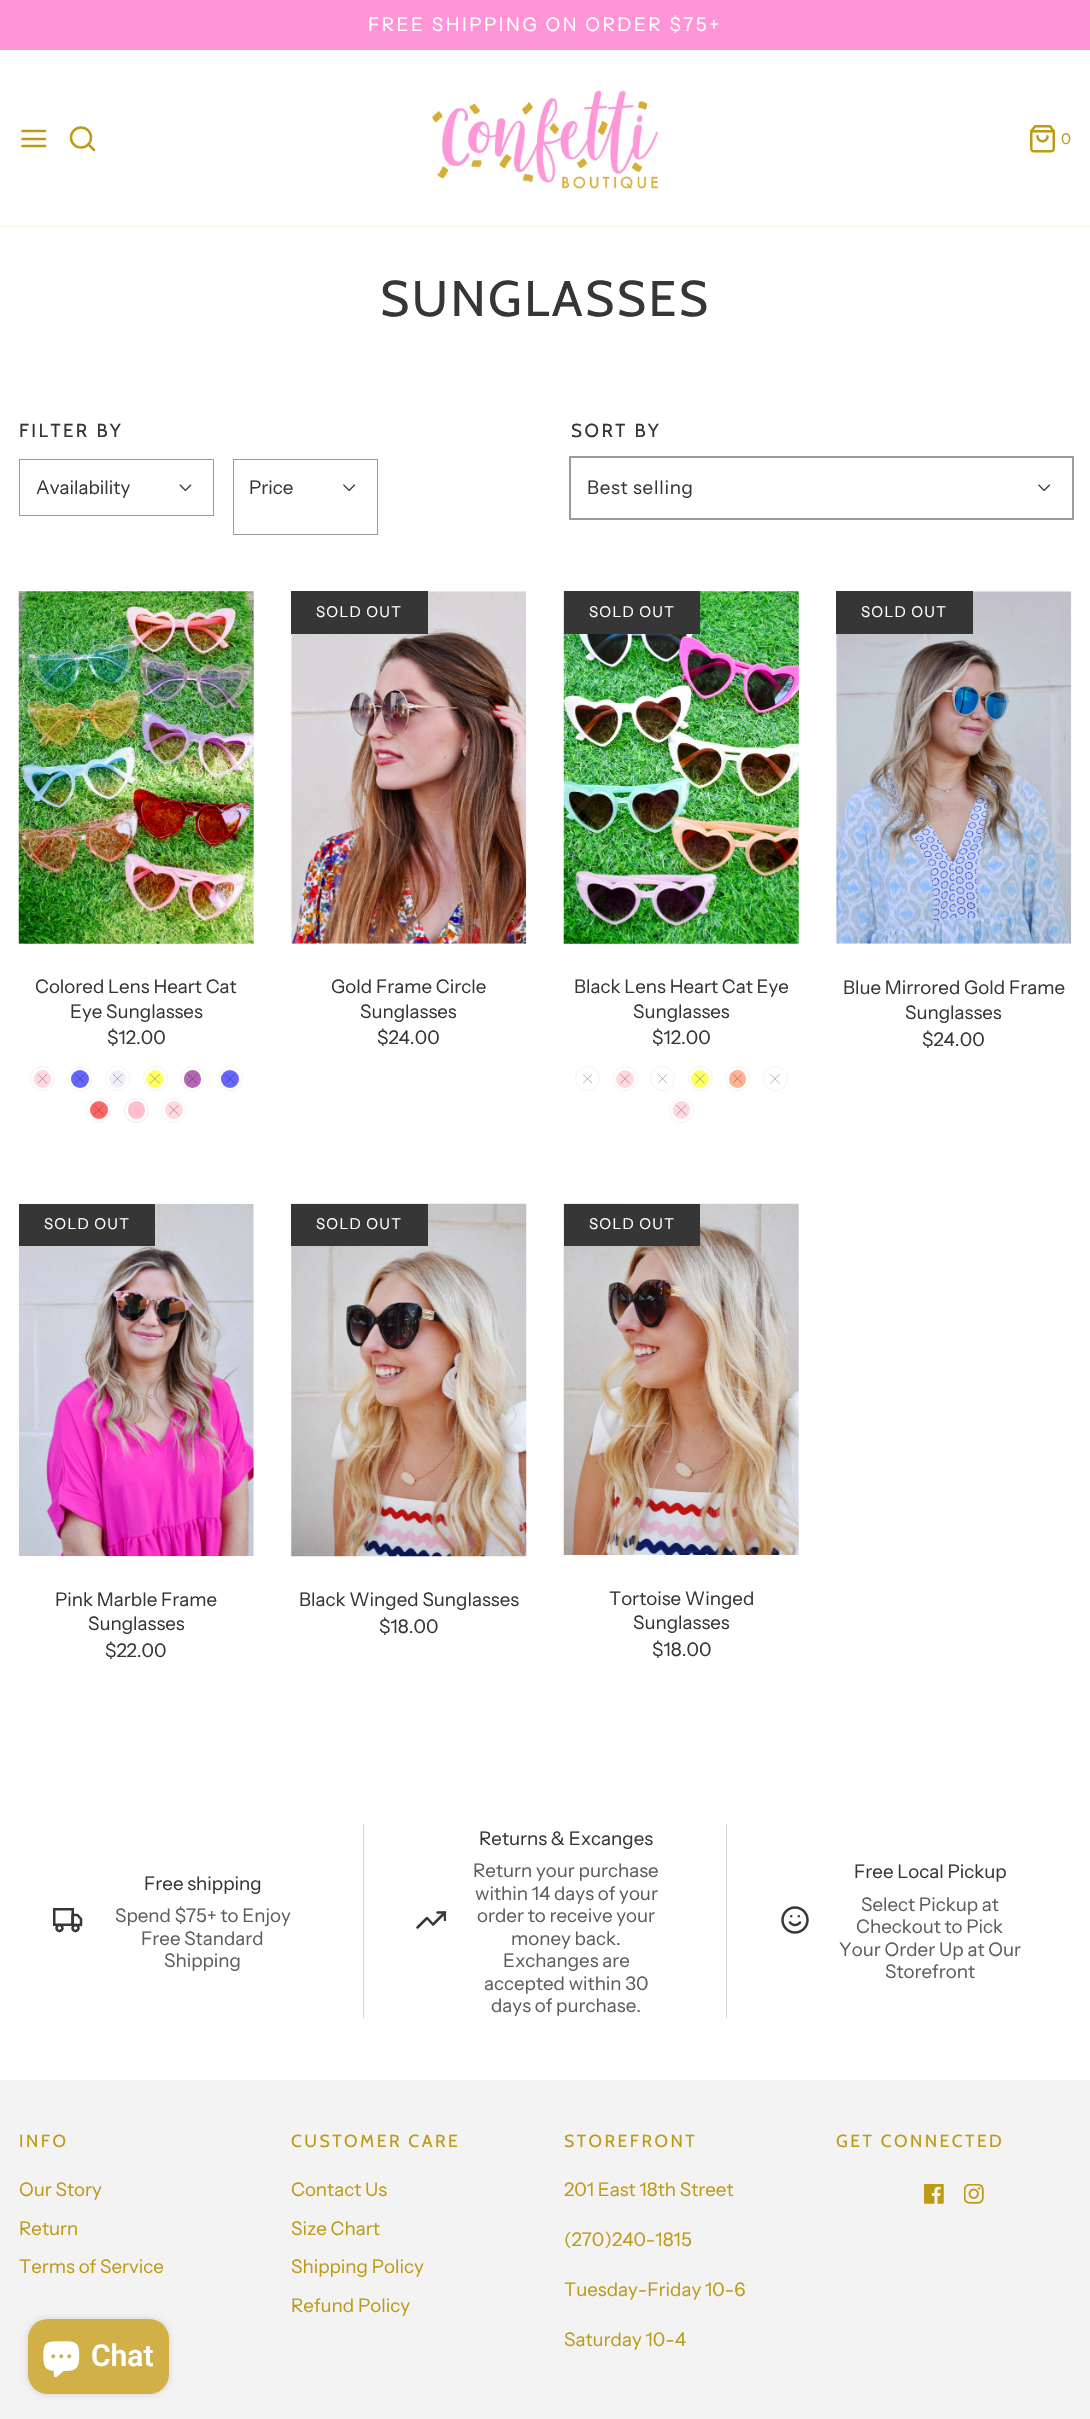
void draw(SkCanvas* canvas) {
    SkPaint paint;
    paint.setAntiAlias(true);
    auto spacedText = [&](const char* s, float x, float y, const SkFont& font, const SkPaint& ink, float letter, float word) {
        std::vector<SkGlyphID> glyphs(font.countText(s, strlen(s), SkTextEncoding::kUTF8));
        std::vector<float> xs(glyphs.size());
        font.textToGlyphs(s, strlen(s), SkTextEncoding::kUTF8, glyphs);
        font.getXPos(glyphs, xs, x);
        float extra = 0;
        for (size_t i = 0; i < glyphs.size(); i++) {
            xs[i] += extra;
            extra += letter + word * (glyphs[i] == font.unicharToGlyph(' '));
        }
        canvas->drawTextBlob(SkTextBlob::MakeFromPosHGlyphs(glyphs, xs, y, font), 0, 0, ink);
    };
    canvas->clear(0xFFFFFFFF);
    paint.setColor(0xFFFF94D6);
    canvas->drawRect(SkRect::MakeXYWH(0, 0, 1090, 50), paint);
    SkFont font1(fontMgr->matchFamilyStyle("Instrument Sans", SkFontStyle::Normal()), 18.75f);
    font1.setSubpixel(true);
    paint.setColor(0xFFFFFFFF);
    spacedText("FREE SHIPPING ON ORDER $75+", 368, 31, font1, paint, 2.5f, 0);
    paint.setColor(0xFFF8F5E8);
    canvas->drawRect(SkRect::MakeXYWH(0, 226, 1090, 1), paint);
    paint.setStyle(SkPaint::kStroke_Style);
    paint.setStrokeWidth(2.5f);
    paint.setStrokeCap(SkPaint::kRound_Cap);
    paint.setStrokeJoin(SkPaint::kRound_Join);
    paint.setColor(0xFFBD9B16);
    canvas->drawPath(SkPathBuilder().moveTo(22.5f, 139).lineTo(45, 139).moveTo(22.5f, 131).lineTo(45, 131).moveTo(22.5f, 146).lineTo(45, 146).detach(), paint);
    paint.setStrokeCap(SkPaint::kButt_Cap);
    paint.setStrokeJoin(SkPaint::kMiter_Join);
    canvas->drawCircle(81, 137.5f, 10, paint);
    paint.setStrokeCap(SkPaint::kRound_Cap);
    paint.setStrokeJoin(SkPaint::kRound_Join);
    canvas->drawPath(SkPathBuilder().moveTo(94, 150).lineTo(88.5f, 144.5f).detach(), paint);
    canvas->drawImageRect(SkImages::DeferredFromEncodedData(SkData::MakeFromFileName("img1.png")), SkRect::MakeXYWH(430, 90, 229, 101), SkSamplingOptions());
    canvas->drawImageRect(SkImages::DeferredFromEncodedData(SkData::MakeFromFileName("img2.png")), SkRect::MakeXYWH(1030, 125, 25, 28), SkSamplingOptions());
    SkFont font2(fontMgr->matchFamilyStyle("Instrument Sans", SkFontStyle::Normal()), 15);
    font2.setSubpixel(true);
    paint.setStyle(SkPaint::kFill_Style);
    canvas->drawString("0", 1061, 144, font2, paint);
    SkFont font3(fontMgr->matchFamilyStyle("Cabin", SkFontStyle::Normal()), 50);
    font3.setSubpixel(true);
    paint.setColor(0xFF363636);
    spacedText("SUNGLASSES", 380, 316, font3, paint, 2.5f, 0);
    SkFont font4(fontMgr->matchFamilyStyle("Cabin", SkFontStyle::Normal()), 18.75f);
    font4.setSubpixel(true);
    spacedText("FILTER BY", 19, 437, font4, paint, 2.5f, 0);
    paint.setStyle(SkPaint::kStroke_Style);
    paint.setStrokeWidth(1);
    paint.setStrokeCap(SkPaint::kButt_Cap);
    paint.setStrokeJoin(SkPaint::kMiter_Join);
    paint.setColor(0xFF9B9B9B);
    canvas->drawRect(SkRect::MakeXYWH(19.5f, 459.5f, 194, 56), paint);
    paint.setStyle(SkPaint::kFill_Style);
    paint.setColor(0xFF363636);
    canvas->drawString("Availability", 36, 494, font1, paint);
    canvas->drawImageRect(SkImages::DeferredFromEncodedData(SkData::MakeFromFileName("img3.png")), SkRect::MakeXYWH(179, 484, 13, 7), SkSamplingOptions());
    paint.setStyle(SkPaint::kStroke_Style);
    paint.setColor(0xFF9B9B9B);
    canvas->drawRect(SkRect::MakeXYWH(233.5f, 459.5f, 144, 75), paint);
    paint.setStyle(SkPaint::kFill_Style);
    paint.setColor(0xFF363636);
    canvas->drawString("Price", 249, 494, font1, paint);
    canvas->drawImageRect(SkImages::DeferredFromEncodedData(SkData::MakeFromFileName("img4.png")), SkRect::MakeXYWH(343, 484, 13, 7), SkSamplingOptions());
    spacedText("SORT BY", 571, 437, font4, paint, 2.5f, 0);
    paint.setStyle(SkPaint::kStroke_Style);
    paint.setStrokeWidth(2);
    paint.setColor(0xFF9B9B9B);
    canvas->drawRect(SkRect::MakeXYWH(570, 457, 503, 62), paint);
    paint.setStyle(SkPaint::kFill_Style);
    paint.setColor(0xFF363636);
    spacedText("Best selling", 587, 494, font1, paint, 0.75f, 0);
    canvas->drawImageRect(SkImages::DeferredFromEncodedData(SkData::MakeFromFileName("img4.png")), SkRect::MakeXYWH(1038, 484, 13, 7), SkSamplingOptions());
    canvas->drawImageRect(SkImages::DeferredFromEncodedData(SkData::MakeFromFileName("img5.png")), SkRect::MakeXYWH(18, 591, 236, 353), SkSamplingOptions());
    canvas->drawString("Colored Lens Heart Cat", 35, 993, font1, paint);
    canvas->drawString("Eye Sunglasses", 70, 1018, font1, paint);
    canvas->drawString("$12.00", 107, 1044, font1, paint);
    paint.setColor(0xFFFFD9E0);
    canvas->drawRoundRect(SkRect::MakeXYWH(34, 1070, 17, 18), 8.5f, 8.5f, paint);
    paint.setStyle(SkPaint::kStroke_Style);
    paint.setStrokeWidth(1);
    paint.setColor(0xFFF3F3F3);
    canvas->drawCircle(42.5f, 1078.5f, 12, paint);
    canvas->drawImageRect(SkImages::DeferredFromEncodedData(SkData::MakeFromFileName("img6.png")), SkRect::MakeXYWH(38, 1074, 10, 10), SkSamplingOptions());
    paint.setStyle(SkPaint::kFill_Style);
    paint.setColor(0xFF6666FF);
    canvas->drawCircle(80, 1079, 9, paint);
    paint.setStyle(SkPaint::kStroke_Style);
    paint.setColor(0xFFF3F3F3);
    canvas->drawCircle(80.5f, 1078.5f, 12, paint);
    canvas->drawImageRect(SkImages::DeferredFromEncodedData(SkData::MakeFromFileName("img7.png")), SkRect::MakeXYWH(75, 1074, 10, 10), SkSamplingOptions());
    paint.setStyle(SkPaint::kFill_Style);
    paint.setColor(0xFFF0F0FC);
    canvas->drawRoundRect(SkRect::MakeXYWH(109, 1070, 17, 18), 8.5f, 8.5f, paint);
    paint.setStyle(SkPaint::kStroke_Style);
    paint.setColor(0xFFF3F3F3);
    canvas->drawCircle(117.5f, 1078.5f, 12, paint);
    canvas->drawImageRect(SkImages::DeferredFromEncodedData(SkData::MakeFromFileName("img8.png")), SkRect::MakeXYWH(113, 1074, 10, 10), SkSamplingOptions());
    paint.setStyle(SkPaint::kFill_Style);
    paint.setColor(0xFFFFFF66);
    canvas->drawCircle(155, 1079, 9, paint);
    paint.setStyle(SkPaint::kStroke_Style);
    paint.setColor(0xFFF3F3F3);
    canvas->drawCircle(155.5f, 1078.5f, 12, paint);
    canvas->drawImageRect(SkImages::DeferredFromEncodedData(SkData::MakeFromFileName("img9.png")), SkRect::MakeXYWH(150, 1074, 10, 10), SkSamplingOptions());
    paint.setStyle(SkPaint::kFill_Style);
    paint.setColor(0xFFB366B3);
    canvas->drawRoundRect(SkRect::MakeXYWH(184, 1070, 17, 18), 8.5f, 8.5f, paint);
    paint.setStyle(SkPaint::kStroke_Style);
    paint.setColor(0xFFF3F3F3);
    canvas->drawCircle(192.5f, 1078.5f, 12, paint);
    canvas->drawImageRect(SkImages::DeferredFromEncodedData(SkData::MakeFromFileName("img10.png")), SkRect::MakeXYWH(188, 1074, 10, 10), SkSamplingOptions());
    paint.setStyle(SkPaint::kFill_Style);
    paint.setColor(0xFF6666FF);
    canvas->drawCircle(230, 1079, 9, paint);
    paint.setStyle(SkPaint::kStroke_Style);
    paint.setColor(0xFFF3F3F3);
    canvas->drawCircle(230.5f, 1078.5f, 12, paint);
    canvas->drawImageRect(SkImages::DeferredFromEncodedData(SkData::MakeFromFileName("img7.png")), SkRect::MakeXYWH(225, 1074, 10, 10), SkSamplingOptions());
    paint.setStyle(SkPaint::kFill_Style);
    paint.setColor(0xFFFF6666);
    canvas->drawCircle(99, 1110, 9, paint);
    paint.setStyle(SkPaint::kStroke_Style);
    paint.setColor(0xFFF3F3F3);
    canvas->drawCircle(98.5f, 1110.5f, 12, paint);
    canvas->drawImageRect(SkImages::DeferredFromEncodedData(SkData::MakeFromFileName("img11.png")), SkRect::MakeXYWH(94, 1105, 10, 10), SkSamplingOptions());
    paint.setStyle(SkPaint::kFill_Style);
    paint.setColor(0xFFFFC0CB);
    canvas->drawRoundRect(SkRect::MakeXYWH(128, 1101, 17, 18), 8.5f, 8.5f, paint);
    paint.setStyle(SkPaint::kStroke_Style);
    paint.setColor(0xFFEBEBEB);
    canvas->drawCircle(136.5f, 1110.5f, 12, paint);
    paint.setStyle(SkPaint::kFill_Style);
    paint.setColor(0xFFFFD9E0);
    canvas->drawCircle(174, 1110, 9, paint);
    paint.setStyle(SkPaint::kStroke_Style);
    paint.setColor(0xFFF3F3F3);
    canvas->drawCircle(173.5f, 1110.5f, 12, paint);
    canvas->drawImageRect(SkImages::DeferredFromEncodedData(SkData::MakeFromFileName("img12.png")), SkRect::MakeXYWH(169, 1105, 10, 10), SkSamplingOptions());
    canvas->drawImageRect(SkImages::DeferredFromEncodedData(SkData::MakeFromFileName("img13.png")), SkRect::MakeXYWH(291, 591, 236, 353), SkSamplingOptions());
    paint.setStyle(SkPaint::kFill_Style);
    paint.setColor(0xFF363636);
    canvas->drawRect(SkRect::MakeXYWH(291, 591, 137, 43), paint);
    paint.setColor(0xFFFFFFFF);
    spacedText("SOLD OUT", 316, 617, font2, paint, 1.25f, 0);
    paint.setColor(0xFF363636);
    canvas->drawString("Gold Frame Circle", 331, 993, font1, paint);
    canvas->drawString("Sunglasses", 360, 1018, font1, paint);
    canvas->drawString("$24.00", 377, 1044, font1, paint);
    canvas->drawImageRect(SkImages::DeferredFromEncodedData(SkData::MakeFromFileName("img14.png")), SkRect::MakeXYWH(563, 591, 236, 353), SkSamplingOptions());
    canvas->drawRect(SkRect::MakeXYWH(564, 591, 136, 43), paint);
    paint.setColor(0xFFFFFFFF);
    spacedText("SOLD OUT", 589, 617, font2, paint, 1.25f, 0);
    paint.setColor(0xFF363636);
    canvas->drawString("Black Lens Heart Cat Eye", 574, 993, font1, paint);
    canvas->drawString("Sunglasses", 633, 1018, font1, paint);
    canvas->drawString("$12.00", 652, 1044, font1, paint);
    paint.setStyle(SkPaint::kStroke_Style);
    paint.setColor(0xFFF3F3F3);
    canvas->drawCircle(587.5f, 1078.5f, 12, paint);
    canvas->drawImageRect(SkImages::DeferredFromEncodedData(SkData::MakeFromFileName("img15.png")), SkRect::MakeXYWH(583, 1074, 10, 10), SkSamplingOptions());
    paint.setStyle(SkPaint::kFill_Style);
    paint.setColor(0xFFFFD9E0);
    canvas->drawCircle(625, 1079, 9, paint);
    paint.setStyle(SkPaint::kStroke_Style);
    paint.setColor(0xFFF3F3F3);
    canvas->drawCircle(625.5f, 1078.5f, 12, paint);
    canvas->drawImageRect(SkImages::DeferredFromEncodedData(SkData::MakeFromFileName("img16.png")), SkRect::MakeXYWH(620, 1074, 10, 10), SkSamplingOptions());
    canvas->drawCircle(662.5f, 1078.5f, 12, paint);
    canvas->drawImageRect(SkImages::DeferredFromEncodedData(SkData::MakeFromFileName("img15.png")), SkRect::MakeXYWH(658, 1074, 10, 10), SkSamplingOptions());
    paint.setStyle(SkPaint::kFill_Style);
    paint.setColor(0xFFFFFF66);
    canvas->drawCircle(700, 1079, 9, paint);
    paint.setStyle(SkPaint::kStroke_Style);
    paint.setColor(0xFFF3F3F3);
    canvas->drawCircle(700.5f, 1078.5f, 12, paint);
    canvas->drawImageRect(SkImages::DeferredFromEncodedData(SkData::MakeFromFileName("img9.png")), SkRect::MakeXYWH(695, 1074, 10, 10), SkSamplingOptions());
    paint.setStyle(SkPaint::kFill_Style);
    paint.setColor(0xFFFFB296);
    canvas->drawRoundRect(SkRect::MakeXYWH(729, 1070, 17, 18), 8.5f, 8.5f, paint);
    paint.setStyle(SkPaint::kStroke_Style);
    paint.setColor(0xFFF3F3F3);
    canvas->drawCircle(737.5f, 1078.5f, 12, paint);
    canvas->drawImageRect(SkImages::DeferredFromEncodedData(SkData::MakeFromFileName("img17.png")), SkRect::MakeXYWH(733, 1074, 10, 10), SkSamplingOptions());
    canvas->drawCircle(775.5f, 1078.5f, 12, paint);
    canvas->drawImageRect(SkImages::DeferredFromEncodedData(SkData::MakeFromFileName("img18.png")), SkRect::MakeXYWH(770, 1074, 10, 10), SkSamplingOptions());
    paint.setStyle(SkPaint::kFill_Style);
    paint.setColor(0xFFFFD9E0);
    canvas->drawRoundRect(SkRect::MakeXYWH(673, 1101, 17, 18), 8.5f, 8.5f, paint);
    paint.setStyle(SkPaint::kStroke_Style);
    paint.setColor(0xFFF3F3F3);
    canvas->drawCircle(681.5f, 1110.5f, 12, paint);
    canvas->drawImageRect(SkImages::DeferredFromEncodedData(SkData::MakeFromFileName("img19.png")), SkRect::MakeXYWH(676, 1105, 10, 10), SkSamplingOptions());
    canvas->drawImageRect(SkImages::DeferredFromEncodedData(SkData::MakeFromFileName("img20.png")), SkRect::MakeXYWH(836, 591, 236, 353), SkSamplingOptions());
    paint.setStyle(SkPaint::kFill_Style);
    paint.setColor(0xFF363636);
    canvas->drawRect(SkRect::MakeXYWH(836, 591, 137, 43), paint);
    paint.setColor(0xFFFFFFFF);
    spacedText("SOLD OUT", 861, 617, font2, paint, 1.25f, 0);
    paint.setColor(0xFF363636);
    canvas->drawString("Blue Mirrored Gold Frame", 843, 994, font1, paint);
    canvas->drawString("Sunglasses", 905, 1019, font1, paint);
    canvas->drawString("$24.00", 922, 1046, font1, paint);
    canvas->drawImageRect(SkImages::DeferredFromEncodedData(SkData::MakeFromFileName("img21.png")), SkRect::MakeXYWH(18, 1203, 236, 354), SkSamplingOptions());
    canvas->drawRect(SkRect::MakeXYWH(19, 1204, 136, 42), paint);
    paint.setColor(0xFFFFFFFF);
    spacedText("SOLD OUT", 44, 1229, font2, paint, 1.25f, 0);
    paint.setColor(0xFF363636);
    canvas->drawString("Pink Marble Frame", 55, 1606, font1, paint);
    canvas->drawString("Sunglasses", 88, 1630, font1, paint);
    canvas->drawString("$22.00", 105, 1657, font1, paint);
    canvas->drawImageRect(SkImages::DeferredFromEncodedData(SkData::MakeFromFileName("img22.png")), SkRect::MakeXYWH(291, 1203, 236, 354), SkSamplingOptions());
    canvas->drawRect(SkRect::MakeXYWH(291, 1204, 137, 42), paint);
    paint.setColor(0xFFFFFFFF);
    spacedText("SOLD OUT", 316, 1229, font2, paint, 1.25f, 0);
    paint.setColor(0xFF363636);
    canvas->drawString("Black Winged Sunglasses", 299, 1606, font1, paint);
    canvas->drawString("$18.00", 379, 1633, font1, paint);
    canvas->drawImageRect(SkImages::DeferredFromEncodedData(SkData::MakeFromFileName("img23.png")), SkRect::MakeXYWH(563, 1203, 236, 352), SkSamplingOptions());
    canvas->drawRect(SkRect::MakeXYWH(564, 1204, 136, 42), paint);
    paint.setColor(0xFFFFFFFF);
    spacedText("SOLD OUT", 589, 1229, font2, paint, 1.25f, 0);
    paint.setColor(0xFF363636);
    canvas->drawString("Tortoise Winged", 609, 1605, font1, paint);
    canvas->drawString("Sunglasses", 633, 1629, font1, paint);
    canvas->drawString("$18.00", 652, 1656, font1, paint);
    paint.setStyle(SkPaint::kStroke_Style);
    paint.setStrokeWidth(2.5f);
    canvas->drawRect(SkRect::MakeXYWH(54.25f, 1909.25f, 18.5f, 15.5f), paint);
    paint.setStrokeCap(SkPaint::kRound_Cap);
    paint.setStrokeJoin(SkPaint::kRound_Join);
    canvas->drawPath(SkPathBuilder().moveTo(72.5f, 1915).lineTo(77.5f, 1915).lineTo(81, 1919).lineTo(81, 1925).lineTo(72.5f, 1925).close().detach(), paint);
    paint.setStrokeCap(SkPaint::kButt_Cap);
    paint.setStrokeJoin(SkPaint::kMiter_Join);
    canvas->drawCircle(59.5f, 1928, 3, paint);
    canvas->drawCircle(75.5f, 1928, 3, paint);
    paint.setStyle(SkPaint::kFill_Style);
    canvas->drawString("Free shipping", 144, 1890, font1, paint);
    paint.setColor(0xFF5E5E5E);
    canvas->drawString("Spend $75+ to Enjoy", 115, 1922, font1, paint);
    canvas->drawString("Free Standard", 141, 1945, font1, paint);
    canvas->drawString("Shipping", 164, 1967, font1, paint);
    paint.setColor(0xFFD7D7D7);
    canvas->drawRect(SkRect::MakeXYWH(363, 1824, 1, 194), paint);
    paint.setStyle(SkPaint::kStroke_Style);
    paint.setStrokeCap(SkPaint::kRound_Cap);
    paint.setStrokeJoin(SkPaint::kRound_Join);
    paint.setColor(0xFF363636);
    canvas->drawPath(SkPathBuilder().moveTo(445, 1912.5f).lineTo(433, 1924.5f).lineTo(427, 1918).lineTo(417.5f, 1927.5f).detach(), paint);
    canvas->save();
    canvas->clipRect(SkRect::MakeXYWH(416, 1905, 30, 30));
    canvas->drawPath(SkPathBuilder().moveTo(437.5f, 1912.5f).lineTo(445, 1912.5f).lineTo(445, 1920).detach(), paint);
    canvas->restore();
    paint.setStyle(SkPaint::kFill_Style);
    canvas->drawString("Returns & Excanges", 479, 1845, font1, paint);
    paint.setColor(0xFF5E5E5E);
    canvas->drawString("Return your purchase", 473, 1877, font1, paint);
    canvas->drawString("within 14 days of your", 475, 1900, font1, paint);
    canvas->drawString("order to receive your", 477, 1922, font1, paint);
    canvas->drawString("money back.", 511, 1945, font1, paint);
    canvas->drawString("Exchanges are", 503, 1967, font1, paint);
    canvas->drawString("accepted within 30", 484, 1990, font1, paint);
    canvas->drawString("days of purchase.", 491, 2012, font1, paint);
    paint.setColor(0xFFD7D7D7);
    canvas->drawRect(SkRect::MakeXYWH(726, 1824, 1, 194), paint);
    canvas->drawImageRect(SkImages::DeferredFromEncodedData(SkData::MakeFromFileName("img24.png")), SkRect::MakeXYWH(781, 1906, 28, 28), SkSamplingOptions());
    paint.setColor(0xFF363636);
    canvas->drawString("Free Local Pickup", 854, 1878, font1, paint);
    paint.setColor(0xFF5E5E5E);
    canvas->drawString("Select Pickup at", 861, 1911, font1, paint);
    canvas->drawString("Checkout to Pick", 856, 1933, font1, paint);
    canvas->drawString("Your Order Up at Our", 839, 1956, font1, paint);
    canvas->drawString("Storefront", 885, 1978, font1, paint);
    paint.setColor(0xFFF3F3F3);
    canvas->drawRect(SkRect::MakeXYWH(0, 2080, 1090, 339), paint);
    SkFont font5(fontMgr->matchFamilyStyle("Cabin", SkFontStyle::Normal()), 17.5f);
    font5.setSubpixel(true);
    paint.setColor(0xFFBD9B16);
    spacedText("INFO", 19, 2147, font5, paint, 2.5f, 0);
    canvas->drawString("Our Story", 19, 2196, font1, paint);
    canvas->drawString("Return", 19, 2235, font1, paint);
    canvas->drawString("Terms of Service", 19, 2273, font1, paint);
    spacedText("CUSTOMER CARE", 291, 2147, font5, paint, 2.5f, 0);
    canvas->drawString("Contact Us", 291, 2196, font1, paint);
    canvas->drawString("Size Chart", 291, 2235, font1, paint);
    canvas->drawString("Shipping Policy", 291, 2273, font1, paint);
    canvas->drawString("Refund Policy", 291, 2312, font1, paint);
    spacedText("STOREFRONT", 564, 2147, font5, paint, 2.5f, 0);
    canvas->drawString("201 East 18th Street", 564, 2196, font1, paint);
    canvas->drawString("(270)240-1815", 564, 2246, font1, paint);
    canvas->drawString("Tuesday-Friday 10-6", 564, 2296, font1, paint);
    canvas->drawString("Saturday 10-4", 564, 2346, font1, paint);
    spacedText("GET CONNECTED", 836, 2147, font5, paint, 2.5f, 0);
    canvas->drawImageRect(SkImages::DeferredFromEncodedData(SkData::MakeFromFileName("img25.png")), SkRect::MakeXYWH(924, 2184, 20, 20), SkSamplingOptions());
    canvas->drawImageRect(SkImages::DeferredFromEncodedData(SkData::MakeFromFileName("img26.png")), SkRect::MakeXYWH(964, 2184, 20, 20), SkSamplingOptions());
    paint.setColor(0x26000000);
    paint.setMaskFilter(SkMaskFilter::MakeBlur(kNormal_SkBlurStyle, 3));
    canvas->drawRoundRect(SkRect::MakeXYWH(28, 2319, 141, 75), 20, 20, paint);
    paint.setMaskFilter(nullptr);
    paint.setColor(0xFFD0B047);
    canvas->drawRoundRect(SkRect::MakeXYWH(28, 2319, 141, 75), 20, 20, paint);
    canvas->drawImageRect(SkImages::DeferredFromEncodedData(SkData::MakeFromFileName("img27.png")), SkRect::MakeXYWH(43, 2341, 37, 37), SkSamplingOptions());
    SkFont font6(fontMgr->matchFamilyStyle("Roboto", SkFontStyle(600, SkFontStyle::kNormal_Width, SkFontStyle::kUpright_Slant)), 30);
    font6.setSubpixel(true);
    paint.setColor(0xFFFFFFFF);
    canvas->drawString("Chat", 91, 2366, font6, paint);
}
